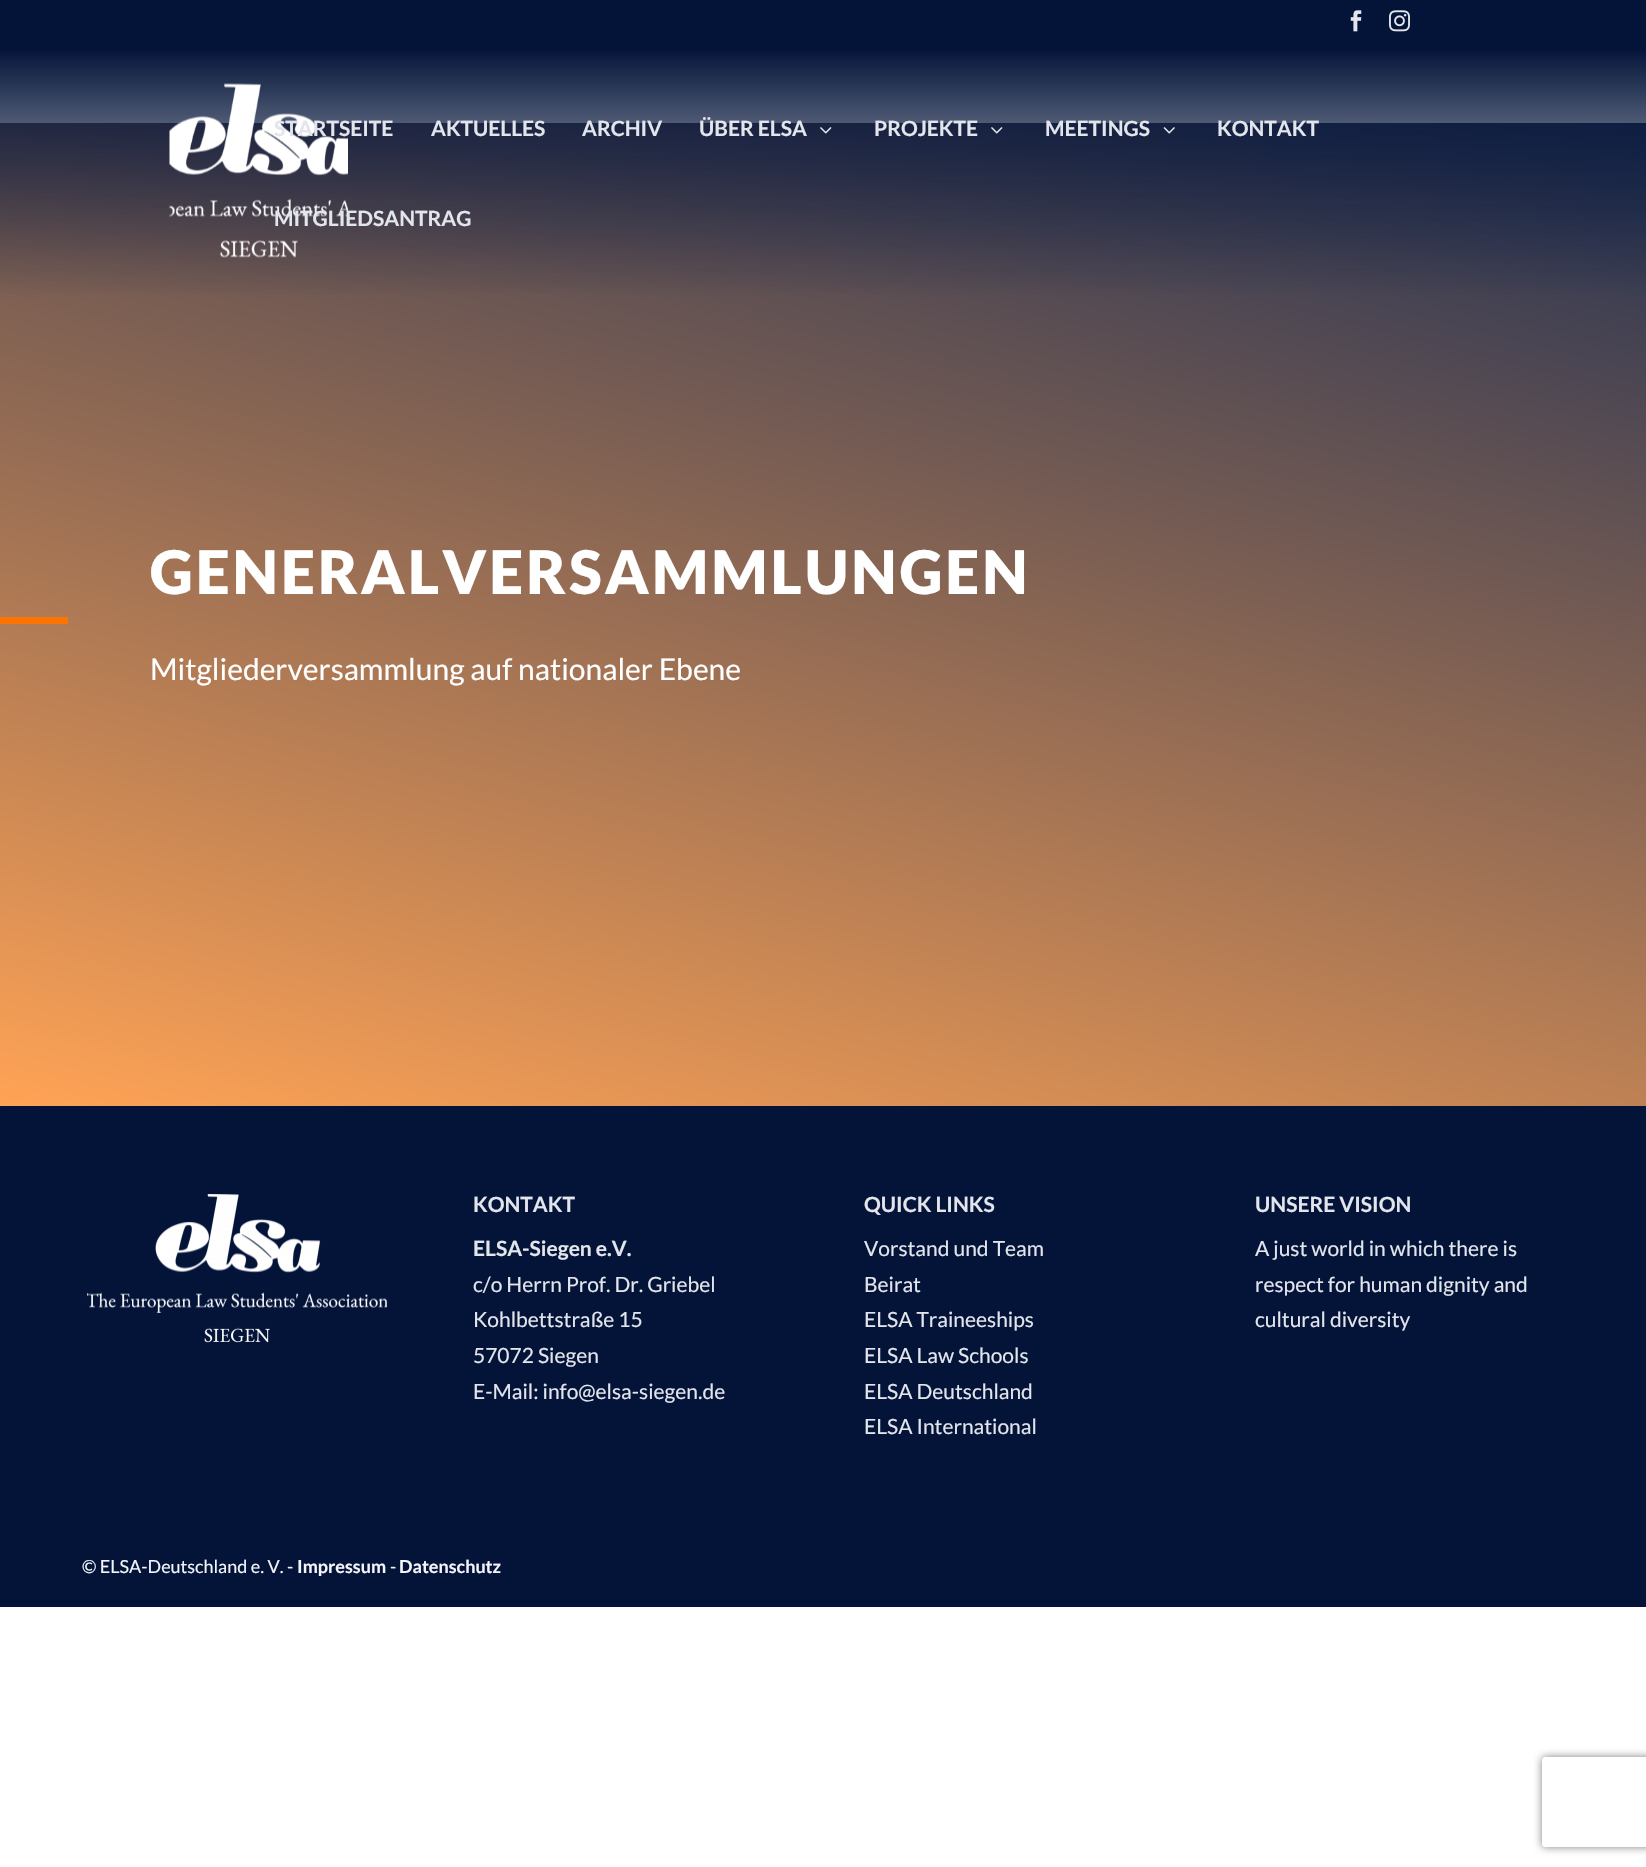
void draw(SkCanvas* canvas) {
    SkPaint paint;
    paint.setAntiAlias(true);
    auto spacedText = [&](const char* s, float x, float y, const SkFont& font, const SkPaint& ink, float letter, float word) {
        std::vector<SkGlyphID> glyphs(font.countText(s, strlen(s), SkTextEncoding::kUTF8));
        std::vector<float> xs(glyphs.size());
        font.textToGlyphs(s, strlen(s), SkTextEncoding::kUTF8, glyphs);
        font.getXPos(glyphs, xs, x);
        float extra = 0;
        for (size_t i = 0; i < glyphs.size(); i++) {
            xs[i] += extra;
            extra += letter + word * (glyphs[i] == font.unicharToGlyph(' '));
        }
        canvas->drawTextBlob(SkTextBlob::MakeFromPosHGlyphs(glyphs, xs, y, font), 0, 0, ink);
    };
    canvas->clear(0xFFFFFFFF);
    paint.setColor(0xFF041439);
    canvas->drawRect(SkRect::MakeXYWH(0, 0, 1646, 50), paint);
    canvas->drawImageRect(SkImages::DeferredFromEncodedData(SkData::MakeFromFileName("img1.png")), SkRect::MakeXYWH(1350, 10, 12, 22), SkSamplingOptions());
    canvas->drawImageRect(SkImages::DeferredFromEncodedData(SkData::MakeFromFileName("img2.png")), SkRect::MakeXYWH(1389, 10, 21, 22), SkSamplingOptions());
    {
        const SkColor colors[] = {0xFF233152, 0xFFFFA355};
        const float stops[] = {0, 1};
        const SkPoint ends[] = {{987, -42}, {660, 1270}};
        paint.setShader(SkGradientShader::MakeLinear(ends, colors, stops, 2, SkTileMode::kClamp));
        paint.setAlpha(255);
    }
    canvas->drawRect(SkRect::MakeXYWH(0, 123, 1646, 983), paint);
    {
        const SkColor colors[] = {0xFF041439, 0x00041439};
        const float stops[] = {0, 1};
        const SkPoint ends[] = {{824, 49}, {824, 299}};
        paint.setShader(SkGradientShader::MakeLinear(ends, colors, stops, 2, SkTileMode::kClamp));
        paint.setAlpha(255);
    }
    canvas->drawRect(SkRect::MakeXYWH(0, 50, 1646, 244), paint);
    canvas->drawImageRect(SkImages::DeferredFromEncodedData(SkData::MakeFromFileName("img3.png")), SkRect::MakeXYWH(169, 83, 179, 175), SkSamplingOptions());
    SkFont font1(fontMgr->matchFamilyStyle("Lato", SkFontStyle::Bold()), 21);
    font1.setSubpixel(true);
    paint.setShader(nullptr);
    paint.setColor(0xFFE2E5EB);
    canvas->drawString("STARTSEITE", 274, 136, font1, paint);
    canvas->drawString("AKTUELLES", 431, 136, font1, paint);
    canvas->drawString("ARCHIV", 582, 136, font1, paint);
    canvas->drawString("ÜBER ELSA", 699, 136, font1, paint);
    canvas->drawImageRect(SkImages::DeferredFromEncodedData(SkData::MakeFromFileName("img4.png")), SkRect::MakeXYWH(820, 127, 12, 7), SkSamplingOptions());
    canvas->drawString("PROJEKTE", 874, 136, font1, paint);
    canvas->drawImageRect(SkImages::DeferredFromEncodedData(SkData::MakeFromFileName("img5.png")), SkRect::MakeXYWH(991, 127, 12, 7), SkSamplingOptions());
    canvas->drawString("MEETINGS", 1045, 136, font1, paint);
    canvas->drawImageRect(SkImages::DeferredFromEncodedData(SkData::MakeFromFileName("img6.png")), SkRect::MakeXYWH(1163, 127, 12, 7), SkSamplingOptions());
    canvas->drawString("KONTAKT", 1217, 136, font1, paint);
    canvas->drawString("MITGLIEDSANTRAG", 274, 226, font1, paint);
    SkFont font2(fontMgr->matchFamilyStyle("Lato", SkFontStyle(900, SkFontStyle::kNormal_Width, SkFontStyle::kUpright_Slant)), 60);
    font2.setSubpixel(true);
    paint.setColor(0xFFFFFFFF);
    spacedText("GENERALVERSAMMLUNGEN", 150, 594, font2, paint, 3, 0);
    paint.setColor(0xFFFF7400);
    canvas->drawRect(SkRect::MakeXYWH(0, 617, 68, 7), paint);
    SkFont font3(fontMgr->matchFamilyStyle("Lato", SkFontStyle::Normal()), 30);
    font3.setSubpixel(true);
    paint.setColor(0xFFFFFFFF);
    canvas->drawString("Mitgliederversammlung auf nationaler Ebene", 150, 680, font3, paint);
    paint.setColor(0xFF041439);
    canvas->drawRect(SkRect::MakeXYWH(0, 1106, 1646, 501), paint);
    canvas->drawImageRect(SkImages::DeferredFromEncodedData(SkData::MakeFromFileName("img7.png")), SkRect::MakeXYWH(87, 1194, 300, 149), SkSamplingOptions());
    paint.setColor(0xFFE2E5EB);
    canvas->drawString("KONTAKT", 473, 1212, font1, paint);
    canvas->drawString("ELSA-Siegen e.V.", 473, 1256, font1, paint);
    SkFont font4(fontMgr->matchFamilyStyle("Lato", SkFontStyle::Normal()), 21);
    font4.setSubpixel(true);
    canvas->drawString("c/o Herrn Prof. Dr. Griebel", 473, 1292, font4, paint);
    canvas->drawString("Kohlbettstraße 15", 473, 1327, font4, paint);
    canvas->drawString("57072 Siegen", 473, 1363, font4, paint);
    canvas->drawString("E-Mail: info@elsa-siegen.de", 473, 1399, font4, paint);
    canvas->drawString("QUICK LINKS", 864, 1212, font1, paint);
    canvas->drawString("Vorstand und Team", 864, 1256, font4, paint);
    canvas->drawString("Beirat", 864, 1292, font4, paint);
    canvas->drawString("ELSA Traineeships", 864, 1327, font4, paint);
    canvas->drawString("ELSA Law Schools", 864, 1363, font4, paint);
    canvas->drawString("ELSA Deutschland", 864, 1399, font4, paint);
    canvas->drawString("ELSA International", 864, 1434, font4, paint);
    canvas->drawString("UNSERE VISION", 1255, 1212, font1, paint);
    canvas->drawString("A just world in which there is", 1255, 1256, font4, paint);
    canvas->drawString("respect for human dignity and", 1255, 1292, font4, paint);
    canvas->drawString("cultural diversity", 1255, 1327, font4, paint);
    SkFont font5(fontMgr->matchFamilyStyle("Lato", SkFontStyle::Normal()), 18);
    font5.setSubpixel(true);
    paint.setColor(0xFFF3F5F9);
    canvas->drawString("© ELSA-Deutschland e. V. -", 82, 1573, font5, paint);
    SkFont font6(fontMgr->matchFamilyStyle("Lato", SkFontStyle::Bold()), 18);
    font6.setSubpixel(true);
    canvas->drawString("Impressum", 297, 1573, font6, paint);
    canvas->drawString("-", 390, 1573, font5, paint);
    canvas->drawString("Datenschutz", 399, 1573, font6, paint);
    canvas->save();
    canvas->clipPath(SkPathBuilder(SkPathFillType::kEvenOdd).moveTo(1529, 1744).lineTo(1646, 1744).lineTo(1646, 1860).lineTo(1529, 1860).close().moveTo(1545, 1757).lineTo(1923, 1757).cubicTo(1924.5f, 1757, 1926, 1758.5f, 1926, 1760).lineTo(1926, 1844).cubicTo(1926, 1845.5f, 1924.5f, 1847, 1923, 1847).lineTo(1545, 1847).cubicTo(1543.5f, 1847, 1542, 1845.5f, 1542, 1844).lineTo(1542, 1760).cubicTo(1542, 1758.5f, 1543.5f, 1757, 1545, 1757).close().detach(), true);
    paint.setColor(0xFF808080);
    paint.setMaskFilter(SkMaskFilter::MakeBlur(kNormal_SkBlurStyle, 4));
    canvas->drawRoundRect(SkRect::MakeXYWH(1542, 1757, 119, 90), 3, 3, paint);
    paint.setMaskFilter(nullptr);
    canvas->restore();
}
